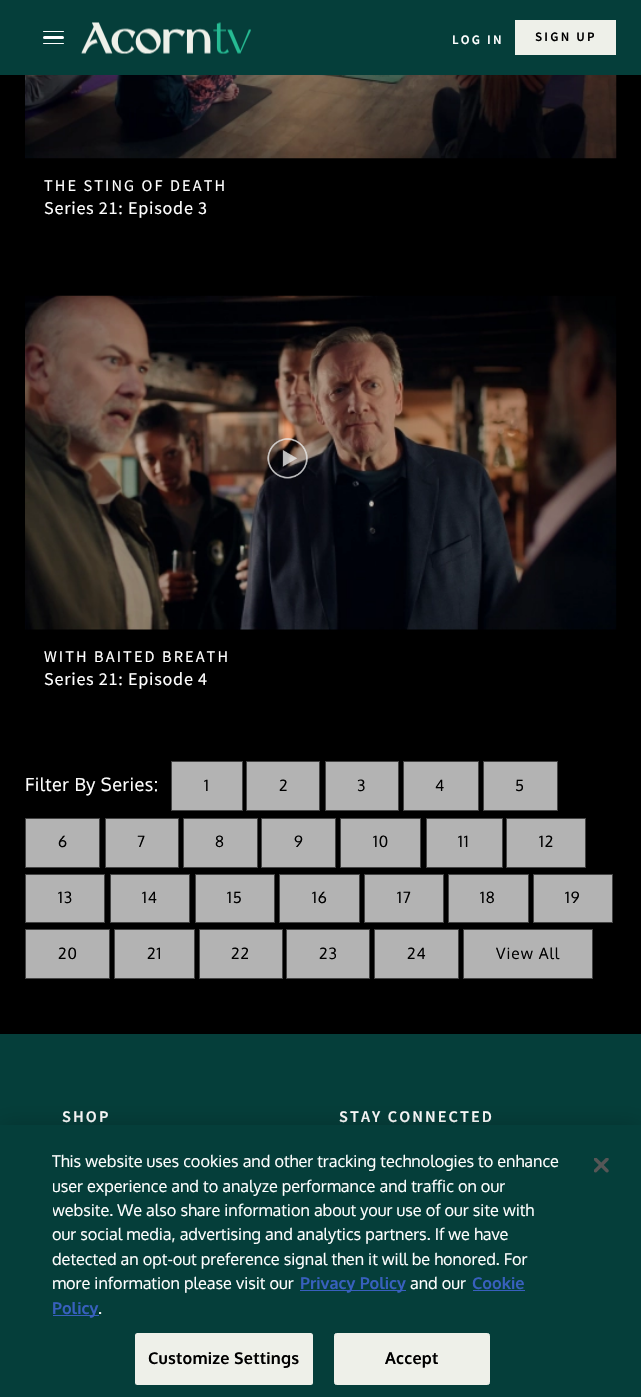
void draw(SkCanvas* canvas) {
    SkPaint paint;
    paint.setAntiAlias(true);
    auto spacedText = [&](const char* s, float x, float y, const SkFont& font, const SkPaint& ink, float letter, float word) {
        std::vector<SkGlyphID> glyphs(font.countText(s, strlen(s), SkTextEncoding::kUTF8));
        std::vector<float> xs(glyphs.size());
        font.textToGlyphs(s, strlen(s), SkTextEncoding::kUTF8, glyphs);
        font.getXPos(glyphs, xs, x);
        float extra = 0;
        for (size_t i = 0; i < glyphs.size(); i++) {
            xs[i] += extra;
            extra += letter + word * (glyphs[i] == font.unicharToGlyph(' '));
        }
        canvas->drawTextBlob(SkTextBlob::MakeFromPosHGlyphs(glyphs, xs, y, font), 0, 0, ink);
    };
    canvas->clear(0xFF000000);
    paint.setColor(0xFF053E3A);
    canvas->drawRect(SkRect::MakeXYWH(0, 0, 641, 75), paint);
    paint.setColor(0xFFFFFFFF);
    canvas->drawRoundRect(SkRect::MakeXYWH(43, 31, 21, 1), 0.5f, 0.5f, paint);
    canvas->drawRoundRect(SkRect::MakeXYWH(43, 36, 21, 3), 1.5f, 1.5f, paint);
    canvas->drawRoundRect(SkRect::MakeXYWH(43, 43, 21, 1), 0.5f, 0.5f, paint);
    canvas->drawImageRect(SkImages::DeferredFromEncodedData(SkData::MakeFromFileName("img1.png")), SkRect::MakeXYWH(81, 22, 170, 32), SkSamplingOptions());
    SkFont font1(fontMgr->matchFamilyStyle("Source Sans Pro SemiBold", SkFontStyle(600, SkFontStyle::kNormal_Width, SkFontStyle::kUpright_Slant)), 13);
    font1.setSubpixel(true);
    spacedText("LOG IN", 452, 44, font1, paint, 2.25f, 0);
    paint.setColor(0xFFEEF0E9);
    canvas->drawRect(SkRect::MakeXYWH(515, 20, 101, 35), paint);
    paint.setColor(0xFF000000);
    spacedText("SIGN UP", 535, 41, font1, paint, 2.25f, 0);
    canvas->drawImageRect(SkImages::DeferredFromEncodedData(SkData::MakeFromFileName("img2.png")), SkRect::MakeXYWH(25, 75, 592, 84), SkSamplingOptions());
    SkFont font2(fontMgr->matchFamilyStyle("Source Sans Pro", SkFontStyle::Normal()), 16.25f);
    font2.setSubpixel(true);
    paint.setColor(0xFFFFFFFF);
    spacedText("THE STING OF DEATH", 44, 191, font2, paint, 2.1f, 0);
    SkFont font3(fontMgr->matchFamilyStyle("Source Sans Pro", SkFontStyle::Normal()), 18.1f);
    font3.setSubpixel(true);
    spacedText("Series 21: Episode 3", 44, 214, font3, paint, 0.75f, 0);
    canvas->drawImageRect(SkImages::DeferredFromEncodedData(SkData::MakeFromFileName("img3.png")), SkRect::MakeXYWH(25, 295, 592, 335), SkSamplingOptions());
    canvas->drawImageRect(SkImages::DeferredFromEncodedData(SkData::MakeFromFileName("img4.png")), SkRect::MakeXYWH(267, 438, 41, 41), SkSamplingOptions());
    spacedText("WITH BAITED BREATH", 44, 662, font2, paint, 2.1f, 0);
    spacedText("Series 21: Episode 4", 44, 685, font3, paint, 0.75f, 0);
    SkFont font4(fontMgr->matchFamilyStyle("Oxygen", SkFontStyle::Normal()), 18.1f);
    font4.setSubpixel(true);
    spacedText("Filter By Series:", 25, 791, font4, paint, 0.5f, 0);
    paint.setColor(0xFFB3B3B3);
    canvas->drawRect(SkRect::MakeXYWH(171.5f, 761.5f, 71, 49), paint);
    paint.setStyle(SkPaint::kStroke_Style);
    paint.setStrokeWidth(1);
    paint.setColor(0xFF444444);
    canvas->drawRect(SkRect::MakeXYWH(171.5f, 761.5f, 71, 49), paint);
    SkFont font5(fontMgr->matchFamilyStyle("Oxygen", SkFontStyle::Normal()), 15.5f);
    font5.setSubpixel(true);
    paint.setStyle(SkPaint::kFill_Style);
    paint.setColor(0xFF000000);
    spacedText("1", 204, 791, font5, paint, 1, 0);
    paint.setColor(0xFFB3B3B3);
    canvas->drawRect(SkRect::MakeXYWH(246.5f, 761.5f, 73, 49), paint);
    paint.setStyle(SkPaint::kStroke_Style);
    paint.setColor(0xFF444444);
    canvas->drawRect(SkRect::MakeXYWH(246.5f, 761.5f, 73, 49), paint);
    paint.setStyle(SkPaint::kFill_Style);
    paint.setColor(0xFF000000);
    spacedText("2", 279, 791, font5, paint, 1, 0);
    paint.setColor(0xFFB3B3B3);
    canvas->drawRect(SkRect::MakeXYWH(325.5f, 761.5f, 73, 49), paint);
    paint.setStyle(SkPaint::kStroke_Style);
    paint.setColor(0xFF444444);
    canvas->drawRect(SkRect::MakeXYWH(325.5f, 761.5f, 73, 49), paint);
    paint.setStyle(SkPaint::kFill_Style);
    paint.setColor(0xFF000000);
    spacedText("3", 357, 791, font5, paint, 1, 0);
    paint.setColor(0xFFB3B3B3);
    canvas->drawRect(SkRect::MakeXYWH(403.5f, 761.5f, 75, 49), paint);
    paint.setStyle(SkPaint::kStroke_Style);
    paint.setColor(0xFF444444);
    canvas->drawRect(SkRect::MakeXYWH(403.5f, 761.5f, 75, 49), paint);
    paint.setStyle(SkPaint::kFill_Style);
    paint.setColor(0xFF000000);
    spacedText("4", 435, 791, font5, paint, 1, 0);
    paint.setColor(0xFFB3B3B3);
    canvas->drawRect(SkRect::MakeXYWH(483.5f, 761.5f, 74, 49), paint);
    paint.setStyle(SkPaint::kStroke_Style);
    paint.setColor(0xFF444444);
    canvas->drawRect(SkRect::MakeXYWH(483.5f, 761.5f, 74, 49), paint);
    paint.setStyle(SkPaint::kFill_Style);
    paint.setColor(0xFF000000);
    spacedText("5", 515, 791, font5, paint, 1, 0);
    paint.setColor(0xFFB3B3B3);
    canvas->drawRect(SkRect::MakeXYWH(25.5f, 818.5f, 74, 49), paint);
    paint.setStyle(SkPaint::kStroke_Style);
    paint.setColor(0xFF444444);
    canvas->drawRect(SkRect::MakeXYWH(25.5f, 818.5f, 74, 49), paint);
    paint.setStyle(SkPaint::kFill_Style);
    paint.setColor(0xFF000000);
    spacedText("6", 58, 847, font5, paint, 1, 0);
    paint.setColor(0xFFB3B3B3);
    canvas->drawRect(SkRect::MakeXYWH(105.5f, 818.5f, 73, 49), paint);
    paint.setStyle(SkPaint::kStroke_Style);
    paint.setColor(0xFF444444);
    canvas->drawRect(SkRect::MakeXYWH(105.5f, 818.5f, 73, 49), paint);
    paint.setStyle(SkPaint::kFill_Style);
    paint.setColor(0xFF000000);
    spacedText("7", 137, 847, font5, paint, 1, 0);
    paint.setColor(0xFFB3B3B3);
    canvas->drawRect(SkRect::MakeXYWH(183.5f, 818.5f, 74, 49), paint);
    paint.setStyle(SkPaint::kStroke_Style);
    paint.setColor(0xFF444444);
    canvas->drawRect(SkRect::MakeXYWH(183.5f, 818.5f, 74, 49), paint);
    paint.setStyle(SkPaint::kFill_Style);
    paint.setColor(0xFF000000);
    spacedText("8", 215, 847, font5, paint, 1, 0);
    paint.setColor(0xFFB3B3B3);
    canvas->drawRect(SkRect::MakeXYWH(261.5f, 818.5f, 74, 49), paint);
    paint.setStyle(SkPaint::kStroke_Style);
    paint.setColor(0xFF444444);
    canvas->drawRect(SkRect::MakeXYWH(261.5f, 818.5f, 74, 49), paint);
    paint.setStyle(SkPaint::kFill_Style);
    paint.setColor(0xFF000000);
    spacedText("9", 294, 847, font5, paint, 1, 0);
    paint.setColor(0xFFB3B3B3);
    canvas->drawRect(SkRect::MakeXYWH(340.5f, 818.5f, 80, 49), paint);
    paint.setStyle(SkPaint::kStroke_Style);
    paint.setColor(0xFF444444);
    canvas->drawRect(SkRect::MakeXYWH(340.5f, 818.5f, 80, 49), paint);
    paint.setStyle(SkPaint::kFill_Style);
    paint.setColor(0xFF000000);
    spacedText("10", 373, 847, font5, paint, 1, 0);
    paint.setColor(0xFFB3B3B3);
    canvas->drawRect(SkRect::MakeXYWH(426.5f, 818.5f, 76, 49), paint);
    paint.setStyle(SkPaint::kStroke_Style);
    paint.setColor(0xFF444444);
    canvas->drawRect(SkRect::MakeXYWH(426.5f, 818.5f, 76, 49), paint);
    paint.setStyle(SkPaint::kFill_Style);
    paint.setColor(0xFF000000);
    spacedText("11", 458, 847, font5, paint, 1, 0);
    paint.setColor(0xFFB3B3B3);
    canvas->drawRect(SkRect::MakeXYWH(506.5f, 818.5f, 79, 49), paint);
    paint.setStyle(SkPaint::kStroke_Style);
    paint.setColor(0xFF444444);
    canvas->drawRect(SkRect::MakeXYWH(506.5f, 818.5f, 79, 49), paint);
    paint.setStyle(SkPaint::kFill_Style);
    paint.setColor(0xFF000000);
    spacedText("12", 539, 847, font5, paint, 1, 0);
    paint.setColor(0xFFB3B3B3);
    canvas->drawRect(SkRect::MakeXYWH(25.5f, 874.5f, 79, 48), paint);
    paint.setStyle(SkPaint::kStroke_Style);
    paint.setColor(0xFF444444);
    canvas->drawRect(SkRect::MakeXYWH(25.5f, 874.5f, 79, 48), paint);
    paint.setStyle(SkPaint::kFill_Style);
    paint.setColor(0xFF000000);
    spacedText("13", 58, 903, font5, paint, 1, 0);
    paint.setColor(0xFFB3B3B3);
    canvas->drawRect(SkRect::MakeXYWH(110.5f, 874.5f, 79, 48), paint);
    paint.setStyle(SkPaint::kStroke_Style);
    paint.setColor(0xFF444444);
    canvas->drawRect(SkRect::MakeXYWH(110.5f, 874.5f, 79, 48), paint);
    paint.setStyle(SkPaint::kFill_Style);
    paint.setColor(0xFF000000);
    spacedText("14", 142, 903, font5, paint, 1, 0);
    paint.setColor(0xFFB3B3B3);
    canvas->drawRect(SkRect::MakeXYWH(195.5f, 874.5f, 79, 48), paint);
    paint.setStyle(SkPaint::kStroke_Style);
    paint.setColor(0xFF444444);
    canvas->drawRect(SkRect::MakeXYWH(195.5f, 874.5f, 79, 48), paint);
    paint.setStyle(SkPaint::kFill_Style);
    paint.setColor(0xFF000000);
    spacedText("15", 227, 903, font5, paint, 1, 0);
    paint.setColor(0xFFB3B3B3);
    canvas->drawRect(SkRect::MakeXYWH(279.5f, 874.5f, 80, 48), paint);
    paint.setStyle(SkPaint::kStroke_Style);
    paint.setColor(0xFF444444);
    canvas->drawRect(SkRect::MakeXYWH(279.5f, 874.5f, 80, 48), paint);
    paint.setStyle(SkPaint::kFill_Style);
    paint.setColor(0xFF000000);
    spacedText("16", 312, 903, font5, paint, 1, 0);
    paint.setColor(0xFFB3B3B3);
    canvas->drawRect(SkRect::MakeXYWH(364.5f, 874.5f, 79, 48), paint);
    paint.setStyle(SkPaint::kStroke_Style);
    paint.setColor(0xFF444444);
    canvas->drawRect(SkRect::MakeXYWH(364.5f, 874.5f, 79, 48), paint);
    paint.setStyle(SkPaint::kFill_Style);
    paint.setColor(0xFF000000);
    spacedText("17", 397, 903, font5, paint, 1, 0);
    paint.setColor(0xFFB3B3B3);
    canvas->drawRect(SkRect::MakeXYWH(448.5f, 874.5f, 80, 48), paint);
    paint.setStyle(SkPaint::kStroke_Style);
    paint.setColor(0xFF444444);
    canvas->drawRect(SkRect::MakeXYWH(448.5f, 874.5f, 80, 48), paint);
    paint.setStyle(SkPaint::kFill_Style);
    paint.setColor(0xFF000000);
    spacedText("18", 480, 903, font5, paint, 1, 0);
    paint.setColor(0xFFB3B3B3);
    canvas->drawRect(SkRect::MakeXYWH(533.5f, 874.5f, 79, 48), paint);
    paint.setStyle(SkPaint::kStroke_Style);
    paint.setColor(0xFF444444);
    canvas->drawRect(SkRect::MakeXYWH(533.5f, 874.5f, 79, 48), paint);
    paint.setStyle(SkPaint::kFill_Style);
    paint.setColor(0xFF000000);
    spacedText("19", 565, 903, font5, paint, 1, 0);
    paint.setColor(0xFFB3B3B3);
    canvas->drawRect(SkRect::MakeXYWH(25.5f, 929.5f, 84, 49), paint);
    paint.setStyle(SkPaint::kStroke_Style);
    paint.setColor(0xFF444444);
    canvas->drawRect(SkRect::MakeXYWH(25.5f, 929.5f, 84, 49), paint);
    paint.setStyle(SkPaint::kFill_Style);
    paint.setColor(0xFF000000);
    spacedText("20", 58, 959, font5, paint, 1, 0);
    paint.setColor(0xFFB3B3B3);
    canvas->drawRect(SkRect::MakeXYWH(114.5f, 929.5f, 80, 49), paint);
    paint.setStyle(SkPaint::kStroke_Style);
    paint.setColor(0xFF444444);
    canvas->drawRect(SkRect::MakeXYWH(114.5f, 929.5f, 80, 49), paint);
    paint.setStyle(SkPaint::kFill_Style);
    paint.setColor(0xFF000000);
    spacedText("21", 147, 959, font5, paint, 1, 0);
    paint.setColor(0xFFB3B3B3);
    canvas->drawRect(SkRect::MakeXYWH(199.5f, 929.5f, 83, 49), paint);
    paint.setStyle(SkPaint::kStroke_Style);
    paint.setColor(0xFF444444);
    canvas->drawRect(SkRect::MakeXYWH(199.5f, 929.5f, 83, 49), paint);
    paint.setStyle(SkPaint::kFill_Style);
    paint.setColor(0xFF000000);
    spacedText("22", 231, 959, font5, paint, 1, 0);
    paint.setColor(0xFFB3B3B3);
    canvas->drawRect(SkRect::MakeXYWH(286.5f, 929.5f, 83, 49), paint);
    paint.setStyle(SkPaint::kStroke_Style);
    paint.setColor(0xFF444444);
    canvas->drawRect(SkRect::MakeXYWH(286.5f, 929.5f, 83, 49), paint);
    paint.setStyle(SkPaint::kFill_Style);
    paint.setColor(0xFF000000);
    spacedText("23", 319, 959, font5, paint, 1, 0);
    paint.setColor(0xFFB3B3B3);
    canvas->drawRect(SkRect::MakeXYWH(374.5f, 929.5f, 84, 49), paint);
    paint.setStyle(SkPaint::kStroke_Style);
    paint.setColor(0xFF444444);
    canvas->drawRect(SkRect::MakeXYWH(374.5f, 929.5f, 84, 49), paint);
    paint.setStyle(SkPaint::kFill_Style);
    paint.setColor(0xFF000000);
    spacedText("24", 407, 959, font5, paint, 1, 0);
    paint.setColor(0xFFB3B3B3);
    canvas->drawRect(SkRect::MakeXYWH(463.5f, 929.5f, 129, 49), paint);
    paint.setStyle(SkPaint::kStroke_Style);
    paint.setColor(0xFF444444);
    canvas->drawRect(SkRect::MakeXYWH(463.5f, 929.5f, 129, 49), paint);
    paint.setStyle(SkPaint::kFill_Style);
    paint.setColor(0xFF000000);
    spacedText("View All", 496, 959, font5, paint, 1, 0);
    paint.setColor(0xFF053E3A);
    canvas->drawRect(SkRect::MakeXYWH(0, 1034, 641, 91), paint);
    SkFont font6(fontMgr->matchFamilyStyle("Source Sans Pro SemiBold", SkFontStyle(600, SkFontStyle::kNormal_Width, SkFontStyle::kUpright_Slant)), 16.25f);
    font6.setSubpixel(true);
    paint.setColor(0xFFFFFFFF);
    spacedText("SHOP", 62, 1122, font6, paint, 2.1f, 0);
    spacedText("STAY CONNECTED", 339, 1122, font6, paint, 2.1f, 0);
    paint.setColor(0x33000000);
    paint.setMaskFilter(SkMaskFilter::MakeBlur(kNormal_SkBlurStyle, 11));
    canvas->drawRect(SkRect::MakeXYWH(0, 1125, 641, 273), paint);
    paint.setMaskFilter(nullptr);
    paint.setColor(0xFF053E3A);
    canvas->drawRect(SkRect::MakeXYWH(0, 1125, 641, 272), paint);
    SkFont font7(fontMgr->matchFamilyStyle("Oxygen", SkFontStyle::Normal()), 16.25f);
    font7.setSubpixel(true);
    paint.setColor(0xFFFFFFFF);
    canvas->drawString("This website uses cookies and other tracking technologies to enhance", 52, 1167, font7, paint);
    canvas->save();
    canvas->clipRect(SkRect::MakeXYWH(53, 1150, 507, 170));
    canvas->drawString("user experience and to analyze performance and traffic on our", 52, 1192, font7, paint);
    canvas->drawString("website. We also share information about your use of our site with", 52, 1216, font7, paint);
    canvas->restore();
    canvas->drawString("our social media, advertising and analytics partners. If we have", 52, 1240, font7, paint);
    canvas->drawString("detected an opt-out preference signal then it will be honored. For", 52, 1265, font7, paint);
    canvas->drawString("more information please visit our", 52, 1289, font7, paint);
    paint.setColor(0xFF3860BE);
    canvas->drawRect(SkRect::MakeXYWH(300, 1290, 106, 1), paint);
    SkFont font8(fontMgr->matchFamilyStyle("Oxygen", SkFontStyle::Bold()), 16.25f);
    font8.setSubpixel(true);
    canvas->drawString("Privacy Policy", 300, 1289, font8, paint);
    paint.setColor(0xFFFFFFFF);
    canvas->drawString("and our", 410, 1289, font7, paint);
    paint.setColor(0xFF3860BE);
    canvas->drawString("Cookie", 472, 1289, font8, paint);
    canvas->drawRect(SkRect::MakeXYWH(473, 1290, 52, 1), paint);
    canvas->drawRect(SkRect::MakeXYWH(53, 1315, 46, 1), paint);
    canvas->drawString("Policy", 52, 1314, font8, paint);
    paint.setColor(0xFFFFFFFF);
    canvas->drawString(".", 98, 1314, font7, paint);
    paint.setColor(0xFFEEF0E9);
    canvas->drawRoundRect(SkRect::MakeXYWH(135, 1333, 178, 52), 2.5f, 2.5f, paint);
    paint.setColor(0xFF000000);
    spacedText("Customize Settings", 148, 1364, font8, paint, 0.2f, 0);
    paint.setColor(0xFFEEF0E9);
    canvas->drawRoundRect(SkRect::MakeXYWH(334.5f, 1333.5f, 155, 51), 2, 2, paint);
    paint.setStyle(SkPaint::kStroke_Style);
    canvas->drawRoundRect(SkRect::MakeXYWH(334.5f, 1333.5f, 155, 51), 2, 2, paint);
    paint.setStyle(SkPaint::kFill_Style);
    paint.setColor(0xFF000000);
    spacedText("Accept", 385, 1364, font8, paint, 0.2f, 0);
    canvas->drawImageRect(SkImages::DeferredFromEncodedData(SkData::MakeFromFileName("img5.png")), SkRect::MakeXYWH(594, 1158, 15, 15), SkSamplingOptions());
}
